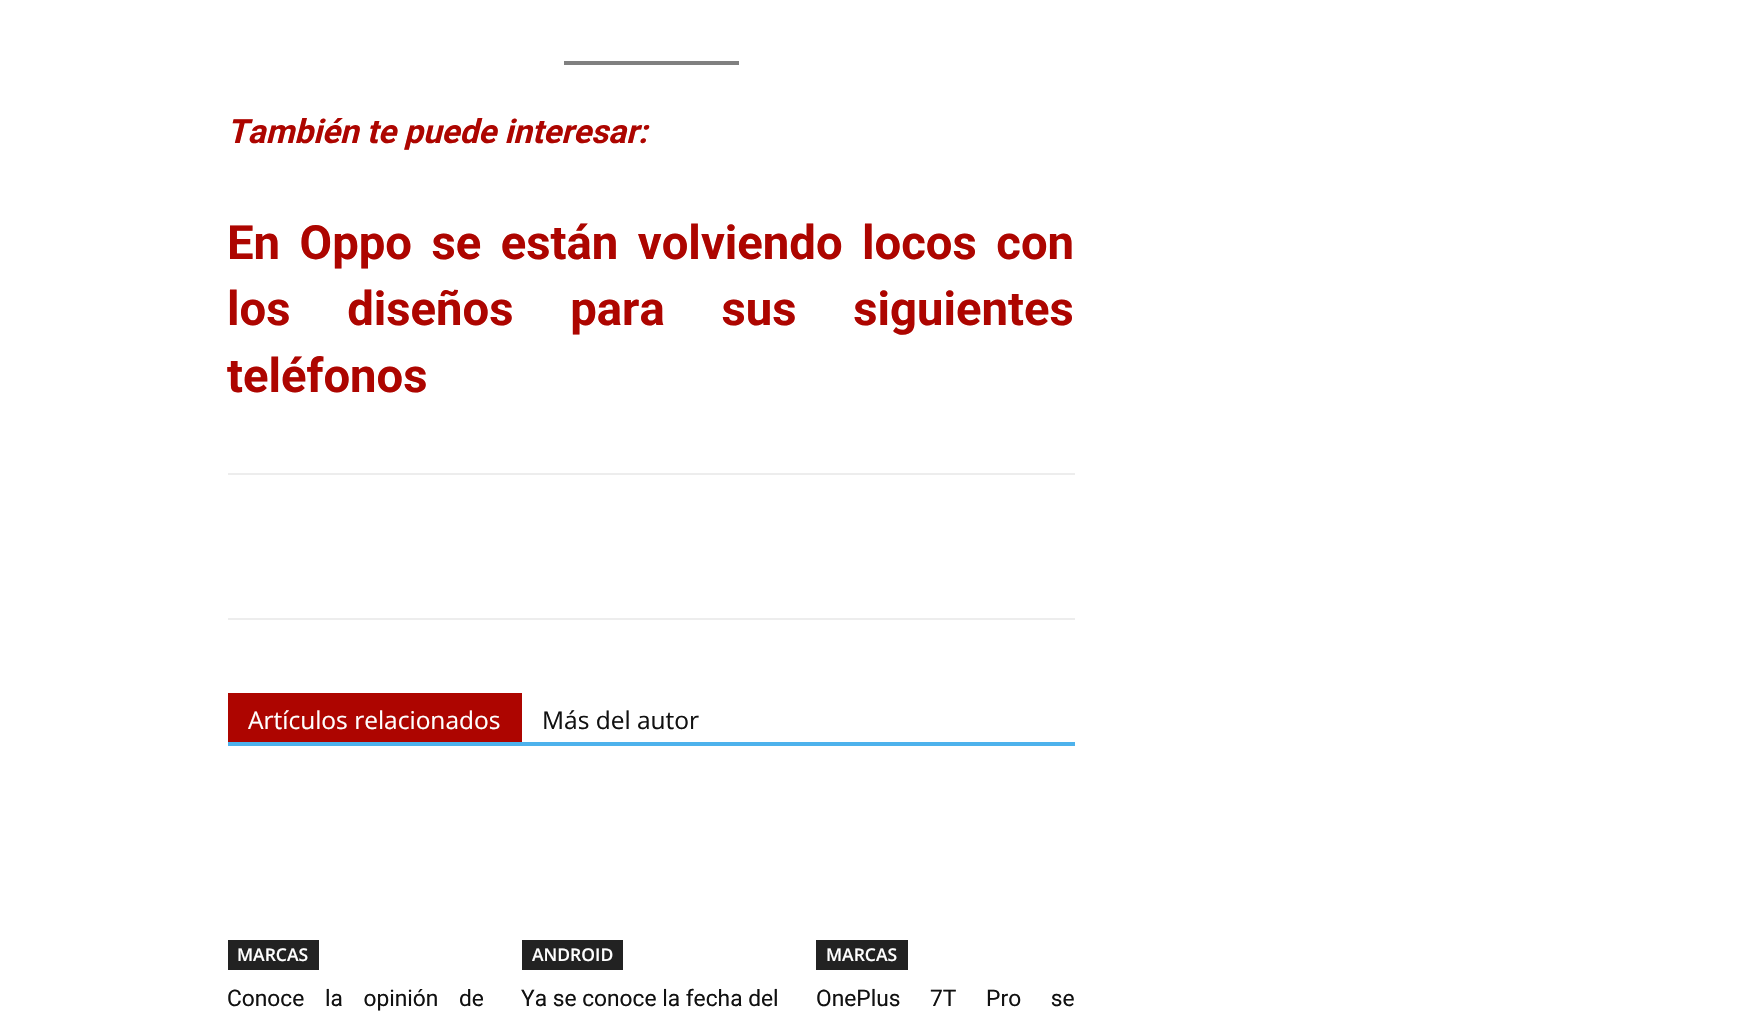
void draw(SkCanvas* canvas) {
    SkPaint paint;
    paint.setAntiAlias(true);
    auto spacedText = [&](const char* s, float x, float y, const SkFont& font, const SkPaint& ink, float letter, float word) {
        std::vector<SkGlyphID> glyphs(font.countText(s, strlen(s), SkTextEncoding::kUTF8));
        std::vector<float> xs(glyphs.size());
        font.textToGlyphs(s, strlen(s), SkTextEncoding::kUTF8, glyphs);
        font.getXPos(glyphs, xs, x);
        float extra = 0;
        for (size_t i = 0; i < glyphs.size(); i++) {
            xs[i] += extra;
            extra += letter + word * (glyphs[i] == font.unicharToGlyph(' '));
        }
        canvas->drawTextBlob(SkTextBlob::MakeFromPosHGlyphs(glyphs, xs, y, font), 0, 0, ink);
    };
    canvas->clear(0xFFFFFFFF);
    paint.setColor(0xFF808080);
    canvas->drawRect(SkRect::MakeXYWH(564, 61, 175, 4), paint);
    SkFont font1(fontMgr->matchFamilyStyle("Roboto", SkFontStyle::BoldItalic()), 33.25f);
    font1.setSubpixel(true);
    paint.setColor(0xFFAD0500);
    canvas->drawString("También te puede interesar:", 227, 143, font1, paint);
    SkFont font2(fontMgr->matchFamilyStyle("Roboto", SkFontStyle::Bold()), 47.25f);
    font2.setSubpixel(true);
    spacedText("En Oppo se están volviendo locos con", 227, 259, font2, paint, 0, 7.75f);
    spacedText("los diseños para sus siguientes", 227, 325, font2, paint, 0, 45);
    canvas->drawString("teléfonos", 227, 392, font2, paint);
    paint.setColor(0xFFEDEDED);
    canvas->drawRect(SkRect::MakeXYWH(228, 473, 847, 2), paint);
    canvas->drawRect(SkRect::MakeXYWH(228, 618, 847, 2), paint);
    paint.setColor(0xFF4DB2EC);
    canvas->drawRect(SkRect::MakeXYWH(228, 742, 847, 4), paint);
    paint.setColor(0xFFAD0500);
    canvas->drawRect(SkRect::MakeXYWH(228, 693, 294, 49), paint);
    SkFont font3(fontMgr->matchFamilyStyle("Open Sans", SkFontStyle::Normal()), 24.5f);
    font3.setSubpixel(true);
    paint.setColor(0xFFFFFFFF);
    canvas->drawString("Artículos relacionados", 248, 729, font3, paint);
    paint.setColor(0xFF111111);
    canvas->drawString("Más del autor", 542, 729, font3, paint);
    paint.setColor(0xFF222222);
    canvas->drawRect(SkRect::MakeXYWH(228, 940, 91, 30), paint);
    SkFont font4(fontMgr->matchFamilyStyle("Open Sans", SkFontStyle(600, SkFontStyle::kNormal_Width, SkFontStyle::kUpright_Slant)), 17.5f);
    font4.setSubpixel(true);
    paint.setColor(0xFFFFFFFF);
    canvas->drawString("MARCAS", 237, 961, font4, paint);
    SkFont font5(fontMgr->matchFamilyStyle("Roboto", SkFontStyle::Normal()), 22.75f);
    font5.setSubpixel(true);
    paint.setColor(0xFF111111);
    spacedText("Conoce la opinión de", 227, 1006, font5, paint, 0, 15);
    paint.setColor(0xFF222222);
    canvas->drawRect(SkRect::MakeXYWH(522, 940, 101, 30), paint);
    paint.setColor(0xFFFFFFFF);
    canvas->drawString("ANDROID", 532, 961, font4, paint);
    paint.setColor(0xFF111111);
    canvas->drawString("Ya se conoce la fecha del", 521, 1006, font5, paint);
    paint.setColor(0xFF222222);
    canvas->drawRect(SkRect::MakeXYWH(816, 940, 92, 30), paint);
    paint.setColor(0xFFFFFFFF);
    canvas->drawString("MARCAS", 826, 961, font4, paint);
    paint.setColor(0xFF111111);
    spacedText("OnePlus 7T Pro se", 816, 1006, font5, paint, 0, 24);
}
